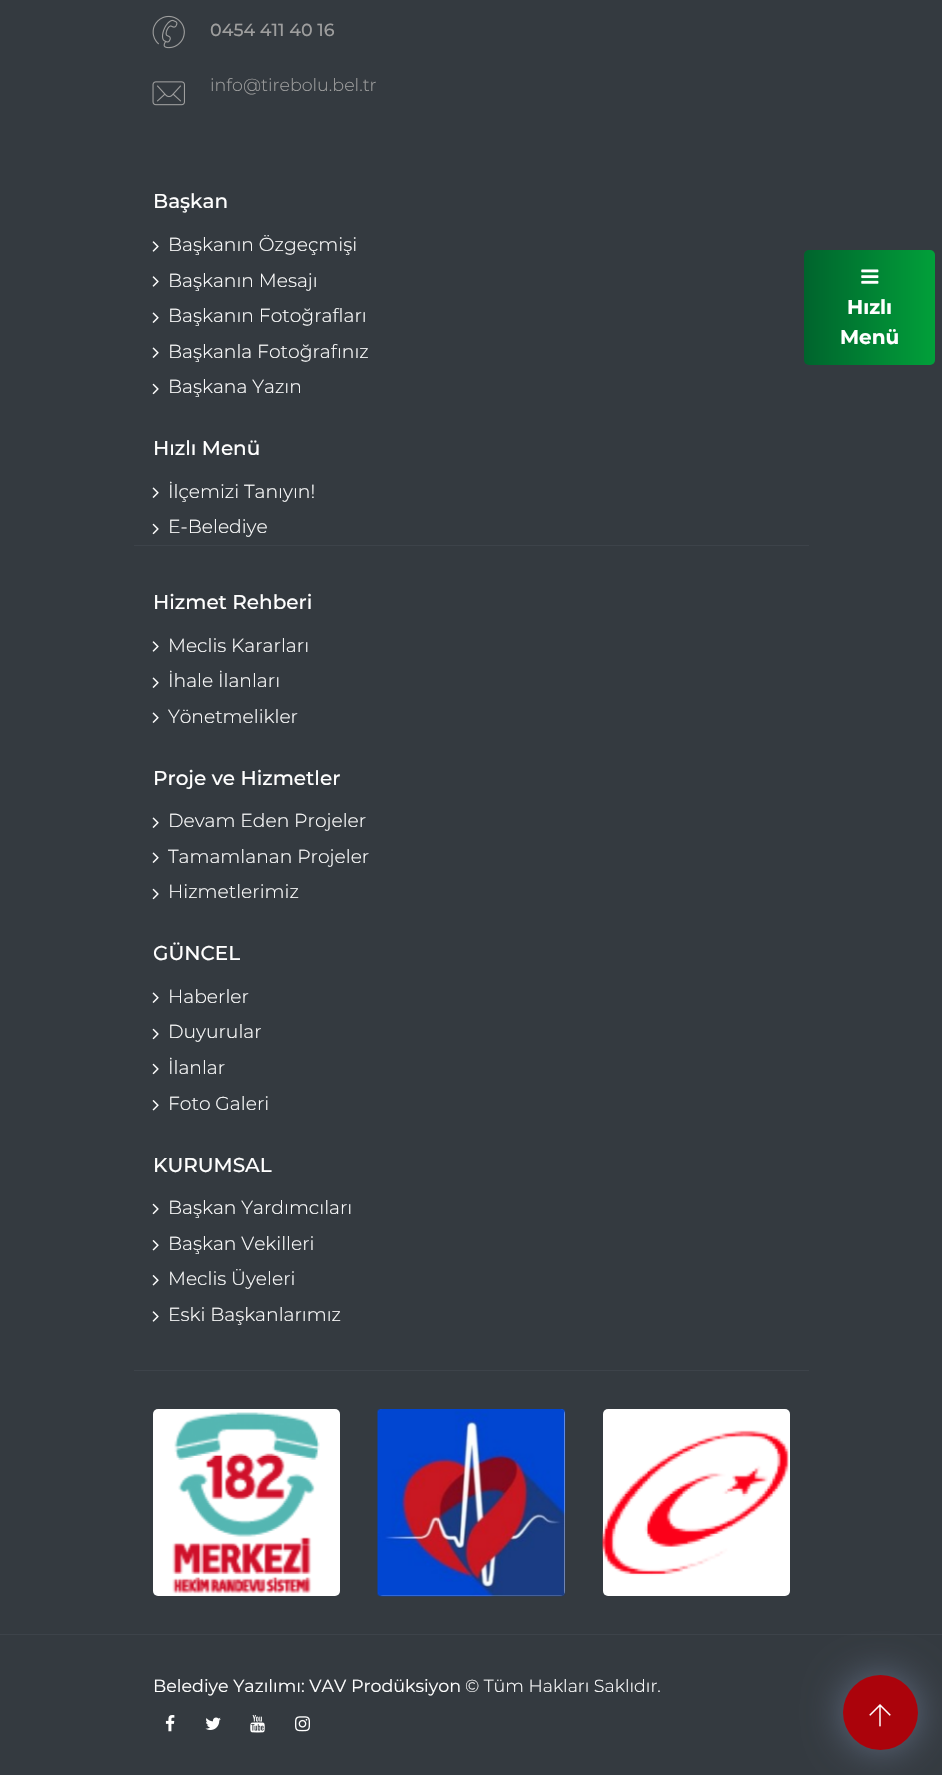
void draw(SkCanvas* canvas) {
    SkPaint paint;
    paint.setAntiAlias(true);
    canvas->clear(0xFF343A40);
    canvas->drawImageRect(SkImages::DeferredFromEncodedData(SkData::MakeFromFileName("img1.png")), SkRect::MakeXYWH(152, 15, 33, 34), SkSamplingOptions());
    SkFont font1(fontMgr->matchFamilyStyle("Montserrat", SkFontStyle(500, SkFontStyle::kNormal_Width, SkFontStyle::kUpright_Slant)), 17.5f);
    font1.setSubpixel(true);
    paint.setColor(0xFF9E9E9E);
    canvas->drawString("0454 411 40 16", 210, 36, font1, paint);
    canvas->drawImageRect(SkImages::DeferredFromEncodedData(SkData::MakeFromFileName("img2.png")), SkRect::MakeXYWH(152, 81, 33, 25), SkSamplingOptions());
    SkFont font2(fontMgr->matchFamilyStyle("Montserrat", SkFontStyle(300, SkFontStyle::kNormal_Width, SkFontStyle::kUpright_Slant)), 17.5f);
    font2.setSubpixel(true);
    canvas->drawString("info@tirebolu.bel.tr", 210, 91, font2, paint);
    SkFont font3(fontMgr->matchFamilyStyle("Montserrat", SkFontStyle(500, SkFontStyle::kNormal_Width, SkFontStyle::kUpright_Slant)), 20);
    font3.setSubpixel(true);
    paint.setColor(0xFFFFFFFF);
    canvas->drawString("Başkan", 153, 208, font3, paint);
    canvas->drawImageRect(SkImages::DeferredFromEncodedData(SkData::MakeFromFileName("img3.png")), SkRect::MakeXYWH(152, 241, 7, 11), SkSamplingOptions());
    SkFont font4(fontMgr->matchFamilyStyle("Montserrat", SkFontStyle(300, SkFontStyle::kNormal_Width, SkFontStyle::kUpright_Slant)), 18.75f);
    font4.setSubpixel(true);
    canvas->drawString("Başkanın Özgeçmişi", 168, 251, font4, paint);
    canvas->drawImageRect(SkImages::DeferredFromEncodedData(SkData::MakeFromFileName("img3.png")), SkRect::MakeXYWH(152, 276, 7, 11), SkSamplingOptions());
    canvas->drawString("Başkanın Mesajı", 168, 287, font4, paint);
    canvas->drawImageRect(SkImages::DeferredFromEncodedData(SkData::MakeFromFileName("img4.png")), SkRect::MakeXYWH(152, 312, 7, 11), SkSamplingOptions());
    canvas->drawString("Başkanın Fotoğrafları", 168, 322, font4, paint);
    canvas->drawImageRect(SkImages::DeferredFromEncodedData(SkData::MakeFromFileName("img4.png")), SkRect::MakeXYWH(152, 347, 7, 11), SkSamplingOptions());
    canvas->drawString("Başkanla Fotoğrafınız", 168, 358, font4, paint);
    canvas->drawImageRect(SkImages::DeferredFromEncodedData(SkData::MakeFromFileName("img5.png")), SkRect::MakeXYWH(152, 383, 7, 12), SkSamplingOptions());
    canvas->drawString("Başkana Yazın", 168, 393, font4, paint);
    canvas->drawString("Hızlı Menü", 153, 455, font3, paint);
    canvas->drawImageRect(SkImages::DeferredFromEncodedData(SkData::MakeFromFileName("img4.png")), SkRect::MakeXYWH(152, 487, 7, 11), SkSamplingOptions());
    canvas->drawString("İlçemizi Tanıyın!", 168, 498, font4, paint);
    canvas->drawImageRect(SkImages::DeferredFromEncodedData(SkData::MakeFromFileName("img5.png")), SkRect::MakeXYWH(152, 523, 7, 12), SkSamplingOptions());
    canvas->drawString("E-Belediye", 168, 533, font4, paint);
    paint.setColor(0xFF3D434A);
    canvas->drawRect(SkRect::MakeXYWH(134, 545, 675, 1), paint);
    canvas->drawRect(SkRect::MakeXYWH(134, 1370, 675, 1), paint);
    paint.setColor(0xFFFFFFFF);
    canvas->drawString("Hizmet Rehberi", 153, 609, font3, paint);
    canvas->drawImageRect(SkImages::DeferredFromEncodedData(SkData::MakeFromFileName("img3.png")), SkRect::MakeXYWH(152, 641, 7, 11), SkSamplingOptions());
    canvas->drawString("Meclis Kararları", 168, 652, font4, paint);
    canvas->drawImageRect(SkImages::DeferredFromEncodedData(SkData::MakeFromFileName("img4.png")), SkRect::MakeXYWH(152, 677, 7, 11), SkSamplingOptions());
    canvas->drawString("İhale İlanları", 168, 687, font4, paint);
    canvas->drawImageRect(SkImages::DeferredFromEncodedData(SkData::MakeFromFileName("img4.png")), SkRect::MakeXYWH(152, 712, 7, 11), SkSamplingOptions());
    canvas->drawString("Yönetmelikler", 168, 723, font4, paint);
    canvas->drawString("Proje ve Hizmetler", 153, 785, font3, paint);
    canvas->drawImageRect(SkImages::DeferredFromEncodedData(SkData::MakeFromFileName("img4.png")), SkRect::MakeXYWH(152, 817, 7, 11), SkSamplingOptions());
    canvas->drawString("Devam Eden Projeler", 168, 827, font4, paint);
    canvas->drawImageRect(SkImages::DeferredFromEncodedData(SkData::MakeFromFileName("img4.png")), SkRect::MakeXYWH(152, 852, 7, 11), SkSamplingOptions());
    canvas->drawString("Tamamlanan Projeler", 168, 863, font4, paint);
    canvas->drawImageRect(SkImages::DeferredFromEncodedData(SkData::MakeFromFileName("img5.png")), SkRect::MakeXYWH(152, 888, 7, 12), SkSamplingOptions());
    canvas->drawString("Hizmetlerimiz", 168, 898, font4, paint);
    canvas->drawString("GÜNCEL", 153, 960, font3, paint);
    canvas->drawImageRect(SkImages::DeferredFromEncodedData(SkData::MakeFromFileName("img4.png")), SkRect::MakeXYWH(152, 992, 7, 11), SkSamplingOptions());
    canvas->drawString("Haberler", 168, 1003, font4, paint);
    canvas->drawImageRect(SkImages::DeferredFromEncodedData(SkData::MakeFromFileName("img5.png")), SkRect::MakeXYWH(152, 1028, 7, 12), SkSamplingOptions());
    canvas->drawString("Duyurular", 168, 1038, font4, paint);
    canvas->drawImageRect(SkImages::DeferredFromEncodedData(SkData::MakeFromFileName("img5.png")), SkRect::MakeXYWH(152, 1063, 7, 12), SkSamplingOptions());
    canvas->drawString("İlanlar", 168, 1074, font4, paint);
    canvas->drawImageRect(SkImages::DeferredFromEncodedData(SkData::MakeFromFileName("img6.png")), SkRect::MakeXYWH(152, 1100, 7, 11), SkSamplingOptions());
    canvas->drawString("Foto Galeri", 168, 1110, font4, paint);
    canvas->drawString("KURUMSAL", 153, 1172, font3, paint);
    canvas->drawImageRect(SkImages::DeferredFromEncodedData(SkData::MakeFromFileName("img5.png")), SkRect::MakeXYWH(152, 1203, 7, 12), SkSamplingOptions());
    canvas->drawString("Başkan Yardımcıları", 168, 1214, font4, paint);
    canvas->drawImageRect(SkImages::DeferredFromEncodedData(SkData::MakeFromFileName("img6.png")), SkRect::MakeXYWH(152, 1240, 7, 11), SkSamplingOptions());
    canvas->drawString("Başkan Vekilleri", 168, 1250, font4, paint);
    canvas->drawImageRect(SkImages::DeferredFromEncodedData(SkData::MakeFromFileName("img6.png")), SkRect::MakeXYWH(152, 1275, 7, 11), SkSamplingOptions());
    canvas->drawString("Meclis Üyeleri", 168, 1285, font4, paint);
    canvas->drawImageRect(SkImages::DeferredFromEncodedData(SkData::MakeFromFileName("img3.png")), SkRect::MakeXYWH(152, 1311, 7, 11), SkSamplingOptions());
    canvas->drawString("Eski Başkanlarımız", 168, 1321, font4, paint);
    canvas->drawRoundRect(SkRect::MakeXYWH(153, 1409, 187, 187), 5, 5, paint);
    canvas->drawImageRect(SkImages::DeferredFromEncodedData(SkData::MakeFromFileName("img7.png")), SkRect::MakeXYWH(172, 1412, 148, 182), SkSamplingOptions());
    canvas->drawRoundRect(SkRect::MakeXYWH(378, 1409, 187, 187), 5, 5, paint);
    canvas->drawImageRect(SkImages::DeferredFromEncodedData(SkData::MakeFromFileName("img8.png")), SkRect::MakeXYWH(377, 1409, 189, 188), SkSamplingOptions());
    canvas->drawRoundRect(SkRect::MakeXYWH(603, 1409, 187, 187), 5, 5, paint);
    canvas->drawImageRect(SkImages::DeferredFromEncodedData(SkData::MakeFromFileName("img9.png")), SkRect::MakeXYWH(602, 1430, 187, 146), SkSamplingOptions());
    paint.setColor(0xFF3D434A);
    canvas->drawRect(SkRect::MakeXYWH(0, 1634, 942, 1), paint);
    SkFont font5(fontMgr->matchFamilyStyle("Montserrat", SkFontStyle::Normal()), 17.5f);
    font5.setSubpixel(true);
    paint.setColor(0xFFFFFFFF);
    canvas->drawString("Belediye Yazılımı: VAV Prodüksiyon", 153, 1692, font5, paint);
    canvas->drawString("© Tüm Hakları Saklıdır.", 465, 1692, font2, paint);
    canvas->drawImageRect(SkImages::DeferredFromEncodedData(SkData::MakeFromFileName("img10.png")), SkRect::MakeXYWH(165, 1715, 10, 17), SkSamplingOptions());
    canvas->drawImageRect(SkImages::DeferredFromEncodedData(SkData::MakeFromFileName("img11.png")), SkRect::MakeXYWH(205, 1717, 16, 13), SkSamplingOptions());
    canvas->drawImageRect(SkImages::DeferredFromEncodedData(SkData::MakeFromFileName("img12.png")), SkRect::MakeXYWH(250, 1715, 15, 18), SkSamplingOptions());
    canvas->drawImageRect(SkImages::DeferredFromEncodedData(SkData::MakeFromFileName("img13.png")), SkRect::MakeXYWH(295, 1716, 15, 16), SkSamplingOptions());
    {
        const SkColor colors[] = {0xFF00642D, 0xFF01A03A};
        const float stops[] = {0, 1};
        const SkPoint ends[] = {{804, 308}, {935, 308}};
        paint.setShader(SkGradientShader::MakeLinear(ends, colors, stops, 2, SkTileMode::kClamp));
        paint.setAlpha(255);
    }
    canvas->drawRoundRect(SkRect::MakeXYWH(804, 250, 131, 115), 5, 5, paint);
    canvas->drawImageRect(SkImages::DeferredFromEncodedData(SkData::MakeFromFileName("img14.png")), SkRect::MakeXYWH(861, 269, 18, 15), SkSamplingOptions());
    SkFont font6(fontMgr->matchFamilyStyle("Montserrat", SkFontStyle::Bold()), 20);
    font6.setSubpixel(true);
    paint.setShader(nullptr);
    paint.setColor(0xFFFFFFFF);
    canvas->drawString("Hızlı", 847, 314, font6, paint);
    canvas->drawString("Menü", 840, 344, font6, paint);
    paint.setColor(0xB373809D);
    paint.setMaskFilter(SkMaskFilter::MakeBlur(kNormal_SkBlurStyle, 19));
    canvas->drawRoundRect(SkRect::MakeXYWH(843, 1675, 75, 75), 37.5f, 37.5f, paint);
    paint.setMaskFilter(nullptr);
    paint.setColor(0xFFAB030B);
    canvas->drawCircle(880.5f, 1712.5f, 37.5f, paint);
    canvas->drawImageRect(SkImages::DeferredFromEncodedData(SkData::MakeFromFileName("img15.png")), SkRect::MakeXYWH(869, 1704, 22, 23), SkSamplingOptions());
}
